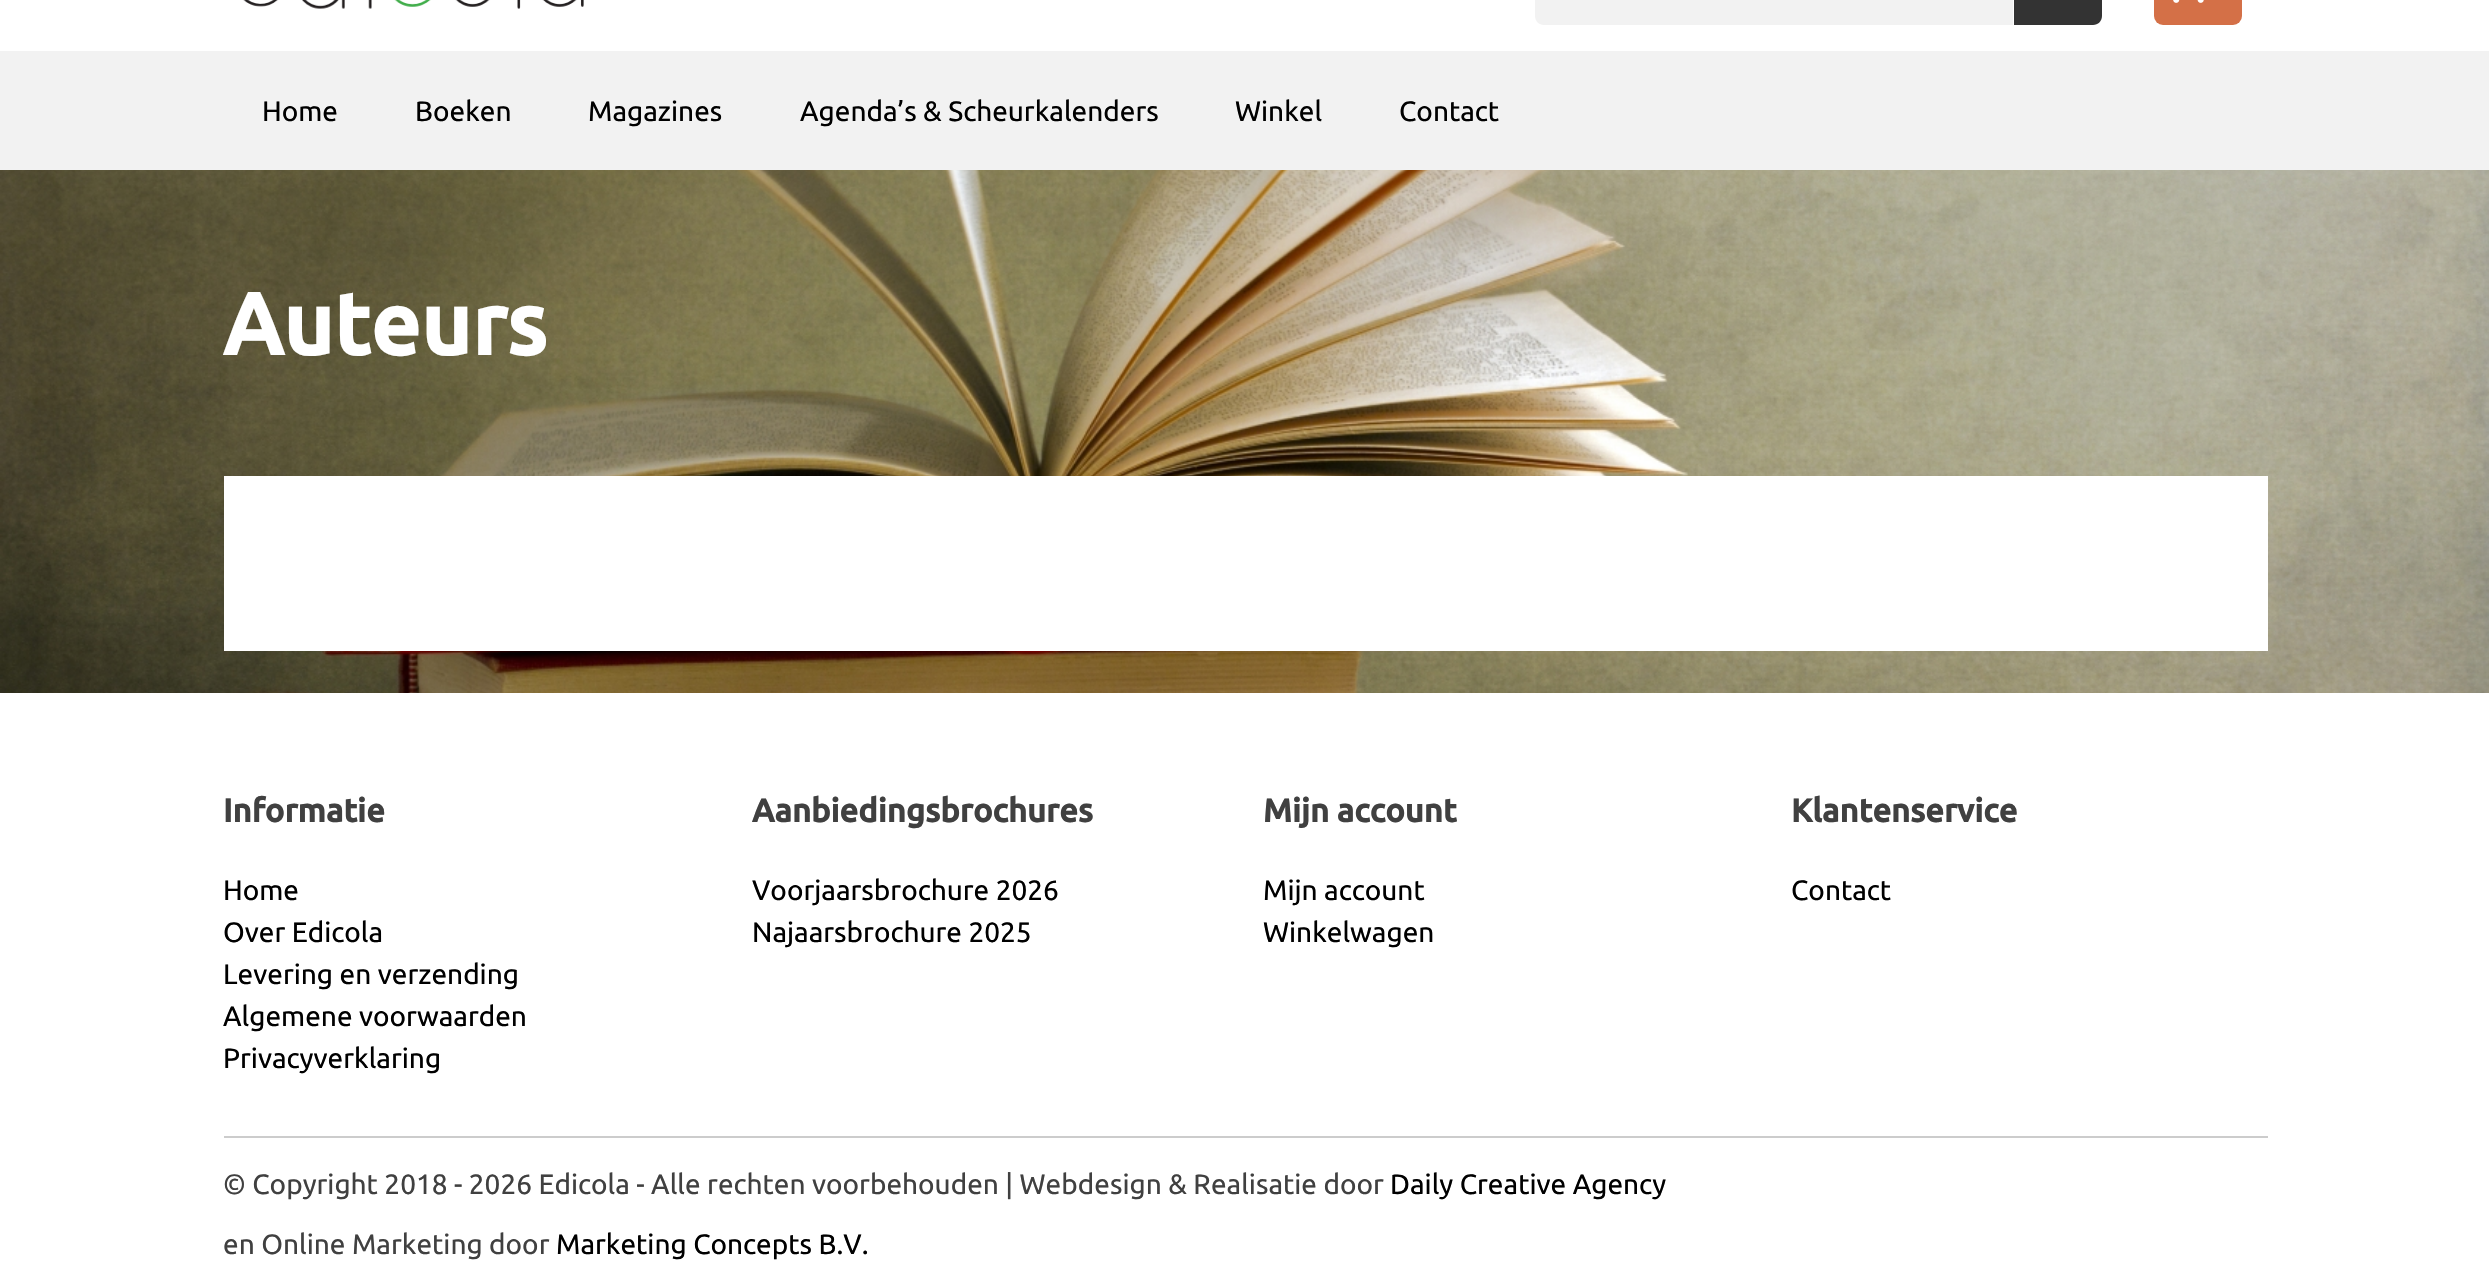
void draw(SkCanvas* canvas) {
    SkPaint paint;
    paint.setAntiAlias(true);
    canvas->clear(0xFFFFFFFF);
    canvas->drawImageRect(SkImages::DeferredFromEncodedData(SkData::MakeFromFileName("img1.png")), SkRect::MakeXYWH(243, 0, 341, 9), SkSamplingOptions());
    paint.setColor(0xFFF2F2F2);
    canvas->drawPath(SkPathBuilder().moveTo(1544, -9).lineTo(2013, -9).lineTo(2013, 25).lineTo(1544, 25).cubicTo(1539, 25, 1535, 21, 1535, 16).lineTo(1535, 0).cubicTo(1535, -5, 1539, -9, 1544, -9).close().detach(), paint);
    paint.setColor(0xFF333333);
    canvas->drawPath(SkPathBuilder().moveTo(2014, -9).lineTo(2093, -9).cubicTo(2098, -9, 2102, -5, 2102, 0).lineTo(2102, 16).cubicTo(2102, 21, 2098, 25, 2093, 25).lineTo(2014, 25).close().detach(), paint);
    paint.setColor(0xFFD47047);
    canvas->drawRoundRect(SkRect::MakeXYWH(2154, -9, 88, 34), 9, 9, paint);
    canvas->drawImageRect(SkImages::DeferredFromEncodedData(SkData::MakeFromFileName("img2.png")), SkRect::MakeXYWH(2173, 0, 31, 3), SkSamplingOptions());
    paint.setColor(0xFFF2F2F2);
    canvas->drawRect(SkRect::MakeXYWH(0, 51, 2489, 119), paint);
    SkFont font1(fontMgr->matchFamilyStyle("Ubuntu", SkFontStyle::Normal()), 28);
    font1.setSubpixel(true);
    paint.setColor(0xFF000000);
    canvas->drawString("Home", 262, 121, font1, paint);
    canvas->drawString("Boeken", 415, 121, font1, paint);
    canvas->drawString("Magazines", 588, 121, font1, paint);
    canvas->drawString("Agenda’s & Scheurkalenders", 800, 121, font1, paint);
    canvas->drawString("Winkel", 1235, 121, font1, paint);
    canvas->drawString("Contact", 1399, 121, font1, paint);
    canvas->drawImageRect(SkImages::DeferredFromEncodedData(SkData::MakeFromFileName("img3.png")), SkRect::MakeXYWH(0, 170, 2489, 523), SkSamplingOptions());
    SkFont font2(fontMgr->matchFamilyStyle("Ubuntu", SkFontStyle::Bold()), 87.5f);
    font2.setSubpixel(true);
    paint.setColor(0xFFFFFFFF);
    canvas->drawString("Auteurs", 223, 355, font2, paint);
    canvas->drawRect(SkRect::MakeXYWH(224, 476, 2044, 175), paint);
    SkFont font3(fontMgr->matchFamilyStyle("Ubuntu", SkFontStyle::Bold()), 32.75f);
    font3.setSubpixel(true);
    paint.setColor(0xFF404040);
    canvas->drawString("Informatie", 223, 822, font3, paint);
    paint.setColor(0xFF000000);
    canvas->drawString("Home", 223, 900, font1, paint);
    canvas->drawString("Over Edicola", 223, 942, font1, paint);
    canvas->drawString("Levering en verzending", 223, 984, font1, paint);
    canvas->drawString("Algemene voorwaarden", 223, 1026, font1, paint);
    canvas->drawString("Privacyverklaring", 223, 1068, font1, paint);
    paint.setColor(0xFF404040);
    canvas->drawString("Aanbiedingsbrochures", 752, 822, font3, paint);
    paint.setColor(0xFF000000);
    canvas->drawString("Voorjaarsbrochure 2026", 752, 900, font1, paint);
    canvas->drawString("Najaarsbrochure 2025", 752, 942, font1, paint);
    paint.setColor(0xFF404040);
    canvas->drawString("Mijn account", 1263, 822, font3, paint);
    paint.setColor(0xFF000000);
    canvas->drawString("Mijn account", 1263, 900, font1, paint);
    canvas->drawString("Winkelwagen", 1263, 942, font1, paint);
    paint.setColor(0xFF404040);
    canvas->drawString("Klantenservice", 1791, 822, font3, paint);
    paint.setColor(0xFF000000);
    canvas->drawString("Contact", 1791, 900, font1, paint);
    paint.setColor(0xFFCCCCCC);
    canvas->drawRect(SkRect::MakeXYWH(224, 1136, 2044, 2), paint);
    paint.setColor(0xFF404040);
    canvas->drawString("© Copyright 2018 - 2026 Edicola - Alle rechten voorbehouden | Webdesign & Realisatie door", 223, 1194, font1, paint);
    paint.setColor(0xFF000000);
    canvas->drawString("Daily Creative Agency", 1390, 1194, font1, paint);
    paint.setColor(0xFF404040);
    canvas->drawString("en Online Marketing door", 223, 1254, font1, paint);
    paint.setColor(0xFF000000);
    canvas->drawString("Marketing Concepts B.V.", 556, 1254, font1, paint);
}
